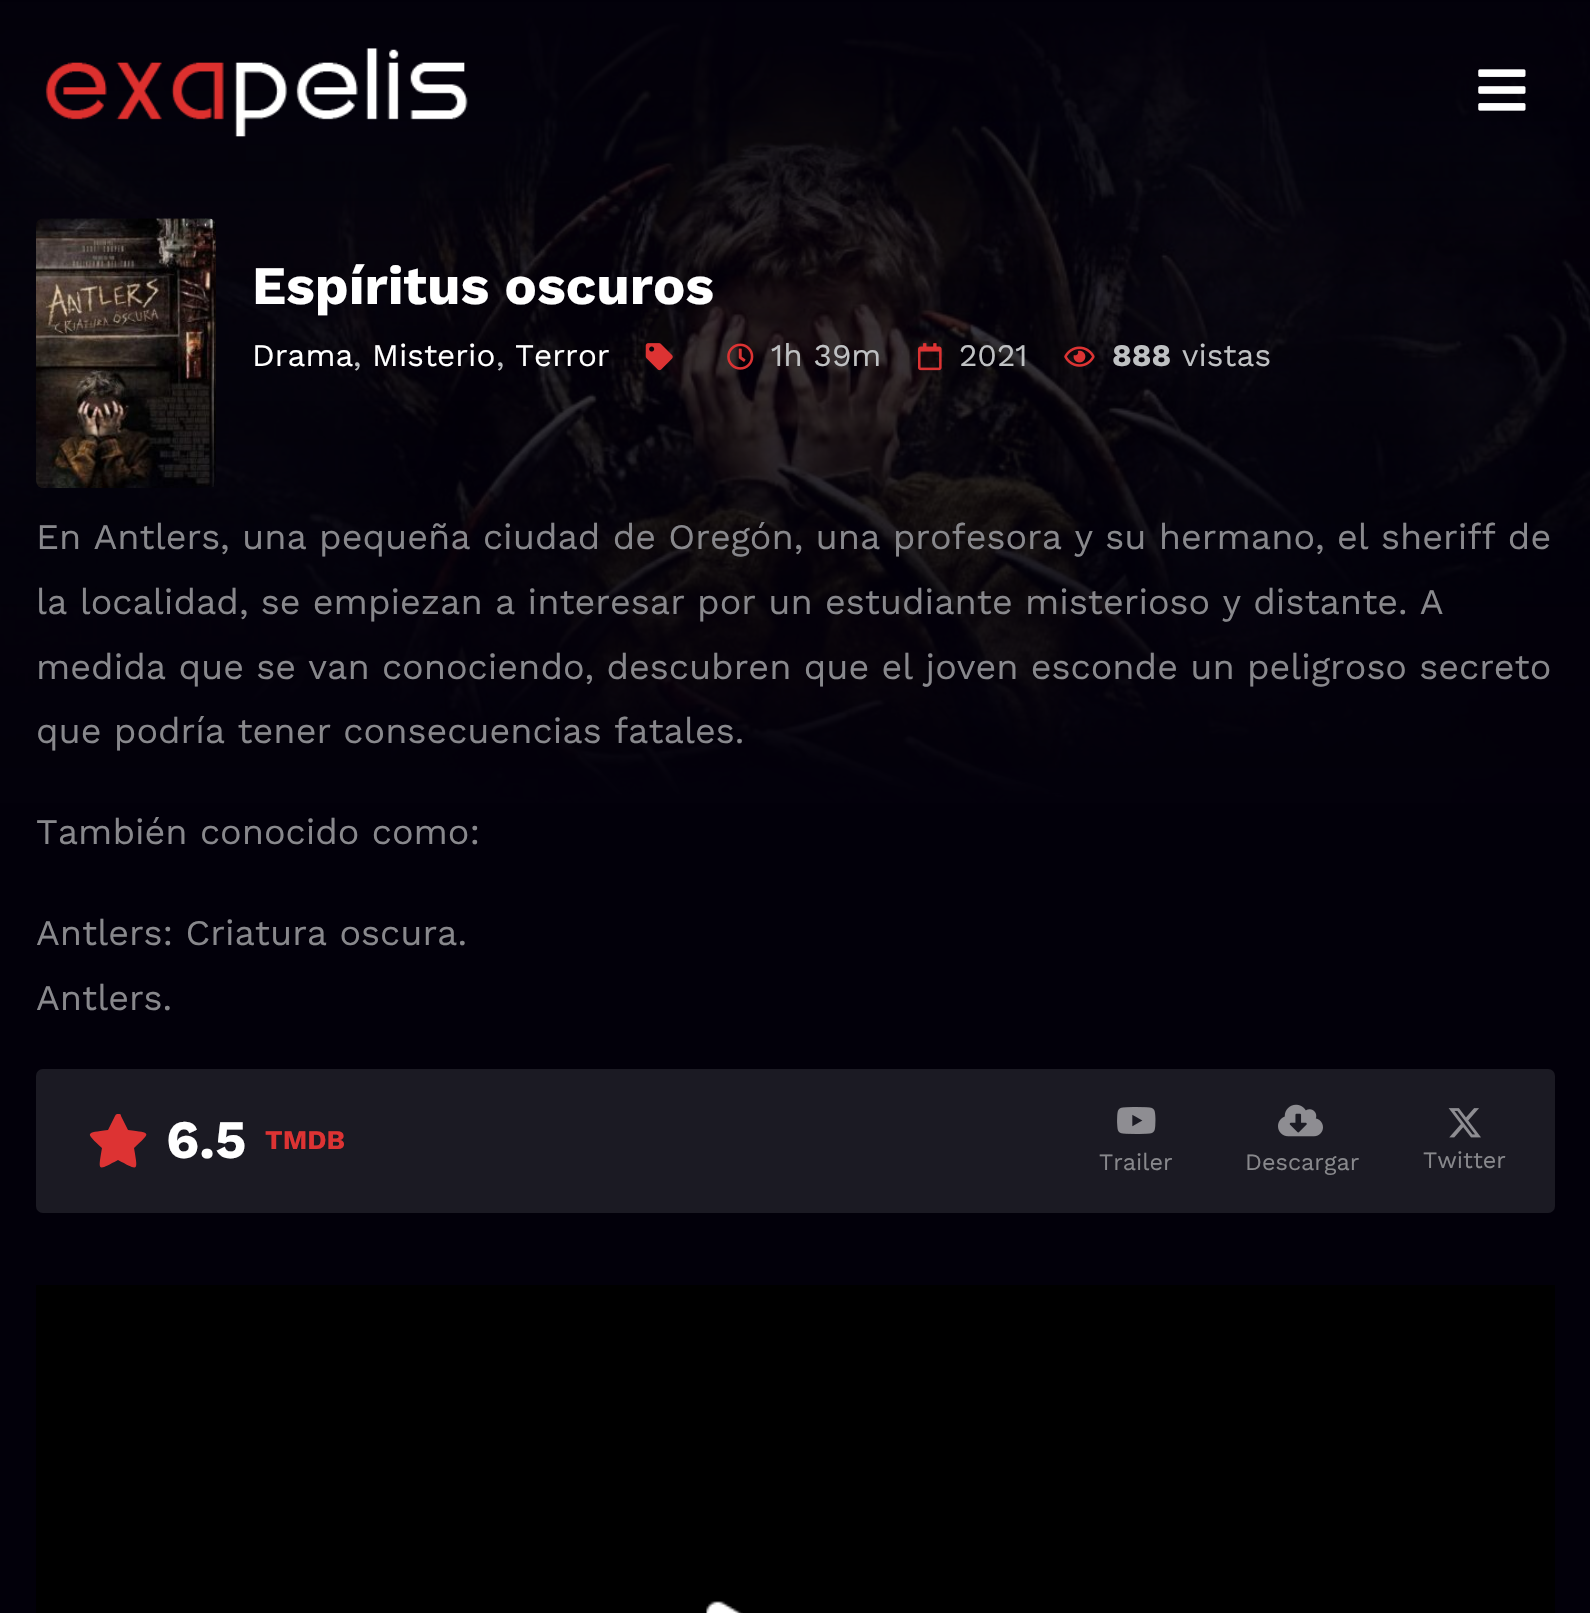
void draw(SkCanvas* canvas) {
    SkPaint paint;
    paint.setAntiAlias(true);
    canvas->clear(0xFF02000A);
    canvas->drawImageRect(SkImages::DeferredFromEncodedData(SkData::MakeFromFileName("img1.png")), SkRect::MakeXYWH(0, 2, 1590, 801), SkSamplingOptions());
    {
        const SkColor colors[] = {0xFF02000A, 0x0002000A};
        const float stops[] = {0, 1};
        const SkPoint ends[] = {{795, 0}, {795, 360}};
        paint.setShader(SkGradientShader::MakeLinear(ends, colors, stops, 2, SkTileMode::kClamp));
        paint.setAlpha(255);
    }
    canvas->drawRect(SkRect::MakeXYWH(0, 2, 1590, 349), paint);
    {
        const SkColor colors[] = {0x0002000A, 0xFF02000A};
        const float stops[] = {0, 1};
        const SkPoint ends[] = {{795, 0}, {795, 808}};
        paint.setShader(SkGradientShader::MakeLinear(ends, colors, stops, 2, SkTileMode::kClamp));
        paint.setAlpha(255);
    }
    canvas->drawRect(SkRect::MakeXYWH(0, 122, 1590, 681), paint);
    canvas->drawImageRect(SkImages::DeferredFromEncodedData(SkData::MakeFromFileName("img2.png")), SkRect::MakeXYWH(45, 48, 423, 89), SkSamplingOptions());
    canvas->drawImageRect(SkImages::DeferredFromEncodedData(SkData::MakeFromFileName("img3.png")), SkRect::MakeXYWH(1478, 69, 48, 42), SkSamplingOptions());
    canvas->drawImageRect(SkImages::DeferredFromEncodedData(SkData::MakeFromFileName("img4.png")), SkRect::MakeXYWH(36, 218, 180, 270), SkSamplingOptions());
    SkFont font1(fontMgr->matchFamilyStyle("Work Sans", SkFontStyle::Bold()), 54);
    font1.setSubpixel(true);
    paint.setShader(nullptr);
    paint.setColor(0xFFFFFFFF);
    canvas->drawString("Espíritus oscuros", 252, 304, font1, paint);
    SkFont font2(fontMgr->matchFamilyStyle("Work Sans", SkFontStyle::Normal()), 31.5f);
    font2.setSubpixel(true);
    canvas->drawString("Drama", 252, 366, font2, paint);
    paint.setColor(0xFFBFC1C3);
    canvas->drawString(",", 353, 366, font2, paint);
    paint.setColor(0xFFFFFFFF);
    canvas->drawString("Misterio", 372, 366, font2, paint);
    paint.setColor(0xFFBFC1C3);
    canvas->drawString(",", 496, 366, font2, paint);
    paint.setColor(0xFFFFFFFF);
    canvas->drawString("Terror", 515, 366, font2, paint);
    canvas->drawImageRect(SkImages::DeferredFromEncodedData(SkData::MakeFromFileName("img5.png")), SkRect::MakeXYWH(645, 343, 28, 28), SkSamplingOptions());
    canvas->drawImageRect(SkImages::DeferredFromEncodedData(SkData::MakeFromFileName("img6.png")), SkRect::MakeXYWH(727, 343, 27, 27), SkSamplingOptions());
    paint.setColor(0xFFBFC1C3);
    canvas->drawString("1h 39m", 771, 366, font2, paint);
    canvas->drawImageRect(SkImages::DeferredFromEncodedData(SkData::MakeFromFileName("img7.png")), SkRect::MakeXYWH(918, 343, 24, 28), SkSamplingOptions());
    canvas->drawString("2021", 959, 366, font2, paint);
    canvas->drawImageRect(SkImages::DeferredFromEncodedData(SkData::MakeFromFileName("img8.png")), SkRect::MakeXYWH(1064, 346, 31, 21), SkSamplingOptions());
    SkFont font3(fontMgr->matchFamilyStyle("Work Sans", SkFontStyle::Bold()), 31.5f);
    font3.setSubpixel(true);
    canvas->drawString("888", 1112, 366, font3, paint);
    canvas->drawString("vistas", 1182, 366, font2, paint);
    SkFont font4(fontMgr->matchFamilyStyle("Work Sans", SkFontStyle::Normal()), 36);
    font4.setSubpixel(true);
    paint.setColor(0xFF88888C);
    canvas->drawString("En Antlers, una pequeña ciudad de Oregón, una profesora y su hermano, el sheriff de", 36, 549, font4, paint);
    canvas->drawString("la localidad, se empiezan a interesar por un estudiante misterioso y distante. A", 36, 614, font4, paint);
    canvas->drawString("medida que se van conociendo, descubren que el joven esconde un peligroso secreto", 36, 679, font4, paint);
    canvas->drawString("que podría tener consecuencias fatales.", 36, 743, font4, paint);
    canvas->drawString("También conocido como:", 36, 844, font4, paint);
    canvas->drawString("Antlers: Criatura oscura.", 36, 945, font4, paint);
    canvas->drawString("Antlers.", 36, 1010, font4, paint);
    paint.setColor(0xFF1B1A23);
    canvas->drawRoundRect(SkRect::MakeXYWH(36, 1069, 1519, 144), 7, 7, paint);
    paint.setColor(0xFFDD3333);
    canvas->drawPath(SkPathBuilder().moveTo(115, 1116).cubicTo(116, 1114, 117, 1114, 118, 1114).cubicTo(120, 1114, 121, 1114, 121, 1116).lineTo(128, 1130).cubicTo(152, 1133, 151, 1132, 134, 1148).cubicTo(138, 1172, 139, 1171, 118, 1160).cubicTo(97, 1171, 98, 1172, 102, 1148).cubicTo(85, 1132, 85, 1133, 108, 1130).close().detach(), paint);
    paint.setColor(0xFFFFFFFF);
    canvas->drawString("6.5", 166, 1158, font1, paint);
    SkFont font5(fontMgr->matchFamilyStyle("Work Sans", SkFontStyle::Bold()), 27);
    font5.setSubpixel(true);
    paint.setColor(0xFFDD3333);
    canvas->drawString("TMDB", 265, 1149, font5, paint);
    canvas->drawImageRect(SkImages::DeferredFromEncodedData(SkData::MakeFromFileName("img9.png")), SkRect::MakeXYWH(1117, 1107, 39, 27), SkSamplingOptions());
    SkFont font6(fontMgr->matchFamilyStyle("Work Sans", SkFontStyle::Normal()), 23.5f);
    font6.setSubpixel(true);
    paint.setColor(0xFF88888C);
    canvas->drawString("Trailer", 1099, 1170, font6, paint);
    canvas->drawImageRect(SkImages::DeferredFromEncodedData(SkData::MakeFromFileName("img10.png")), SkRect::MakeXYWH(1278, 1104, 45, 33), SkSamplingOptions());
    canvas->drawString("Descargar", 1245, 1170, font6, paint);
    canvas->drawImageRect(SkImages::DeferredFromEncodedData(SkData::MakeFromFileName("img11.png")), SkRect::MakeXYWH(1448, 1108, 33, 30), SkSamplingOptions());
    canvas->drawString("Twitter", 1423, 1168, font6, paint);
    paint.setColor(0xFF000000);
    canvas->drawRect(SkRect::MakeXYWH(36, 1285, 1519, 328), paint);
    canvas->drawImageRect(SkImages::DeferredFromEncodedData(SkData::MakeFromFileName("img12.png")), SkRect::MakeXYWH(706, 1601, 37, 12), SkSamplingOptions());
}
